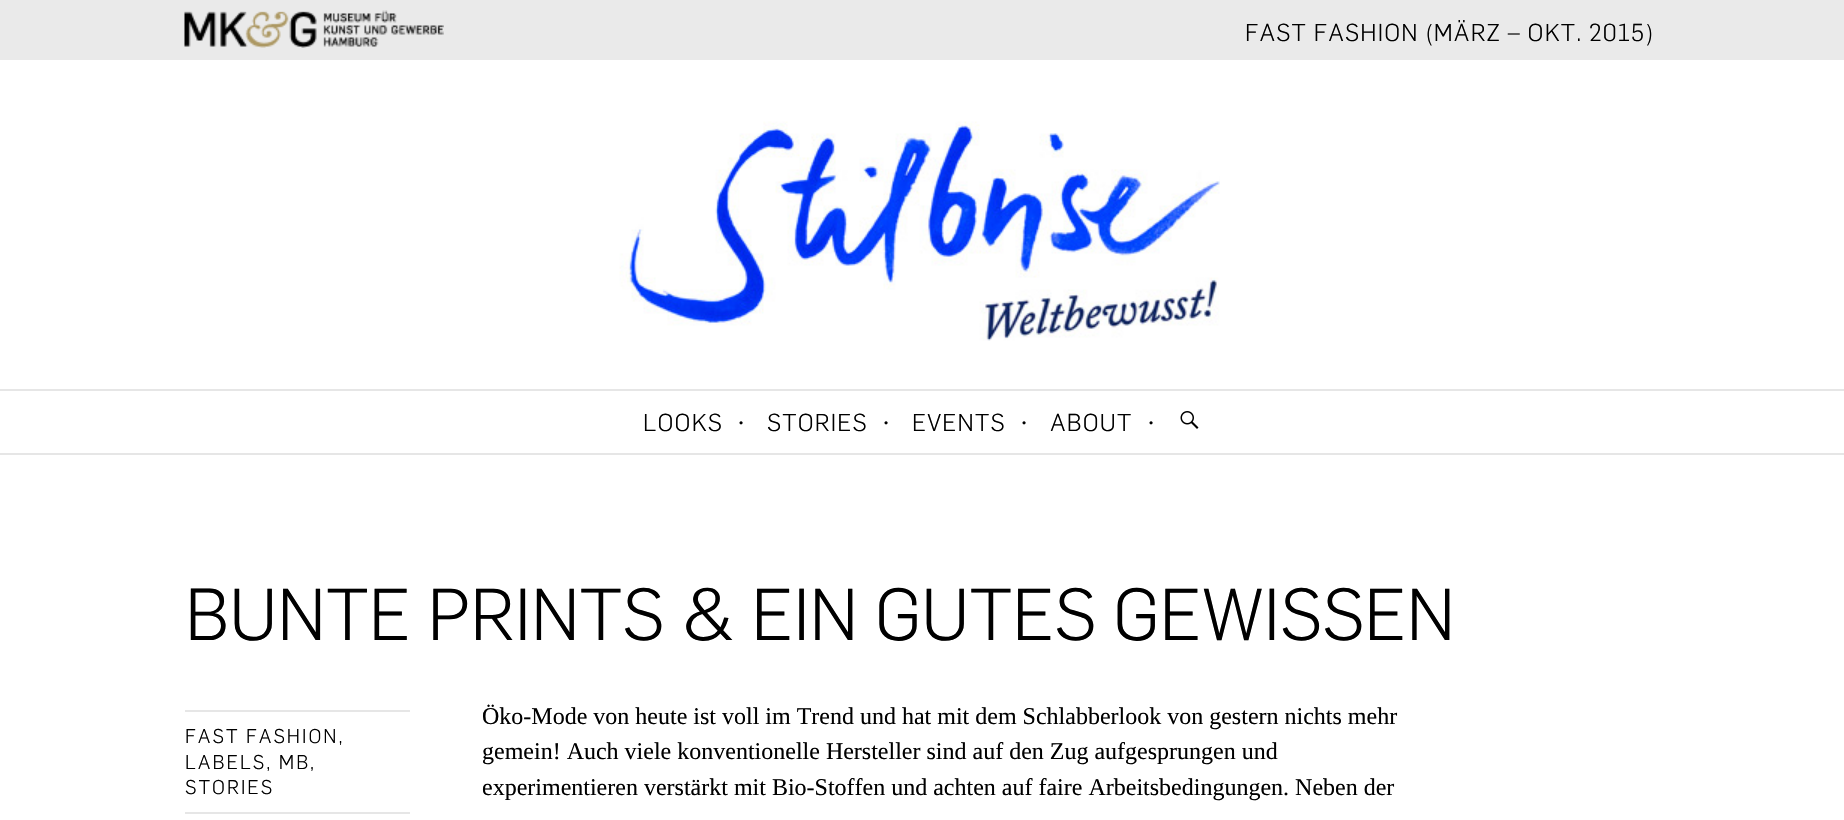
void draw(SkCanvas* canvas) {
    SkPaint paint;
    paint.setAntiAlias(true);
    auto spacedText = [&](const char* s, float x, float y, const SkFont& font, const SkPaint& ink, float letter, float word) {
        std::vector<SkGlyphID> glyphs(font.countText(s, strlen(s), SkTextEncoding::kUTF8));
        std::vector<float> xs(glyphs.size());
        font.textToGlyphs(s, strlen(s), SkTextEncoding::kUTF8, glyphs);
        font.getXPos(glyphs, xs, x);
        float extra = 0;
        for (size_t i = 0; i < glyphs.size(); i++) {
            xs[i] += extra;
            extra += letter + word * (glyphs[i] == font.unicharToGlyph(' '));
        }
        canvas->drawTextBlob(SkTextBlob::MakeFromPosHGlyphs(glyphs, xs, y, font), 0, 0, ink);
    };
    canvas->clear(0xFFFFFFFF);
    paint.setColor(0xFFEAEAEA);
    canvas->drawRect(SkRect::MakeXYWH(0, 0, 1844, 60), paint);
    canvas->drawImageRect(SkImages::DeferredFromEncodedData(SkData::MakeFromFileName("img1.png")), SkRect::MakeXYWH(184, 10, 260, 38), SkSamplingOptions());
    SkFont font1(fontMgr->matchFamilyStyle("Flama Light", SkFontStyle(300, SkFontStyle::kNormal_Width, SkFontStyle::kUpright_Slant)), 24);
    font1.setSubpixel(true);
    paint.setColor(0xFF000000);
    spacedText("FAST FASHION (MÄRZ – OKT. 2015)", 1245, 41, font1, paint, 1.2f, 0);
    paint.setColor(0xFFE6E6E6);
    canvas->drawRect(SkRect::MakeXYWH(0, 453, 1844, 2), paint);
    canvas->drawImageRect(SkImages::DeferredFromEncodedData(SkData::MakeFromFileName("img2.png")), SkRect::MakeXYWH(619, 121, 601, 220), SkSamplingOptions());
    canvas->drawRect(SkRect::MakeXYWH(0, 389, 1844, 2), paint);
    paint.setColor(0xFF000000);
    spacedText("LOOKS", 643, 431, font1, paint, 1.2f, 0);
    SkFont font2(fontMgr->matchFamilyStyle("Flama Light", SkFontStyle(300, SkFontStyle::kNormal_Width, SkFontStyle::kUpright_Slant)), 16);
    font2.setSubpixel(true);
    spacedText("•", 738, 428, font2, paint, 1.2f, 0);
    spacedText("STORIES", 767, 431, font1, paint, 1.2f, 0);
    spacedText("•", 883, 428, font2, paint, 1.2f, 0);
    spacedText("EVENTS", 912, 431, font1, paint, 1.2f, 0);
    spacedText("•", 1021, 428, font2, paint, 1.2f, 0);
    spacedText("ABOUT", 1050, 431, font1, paint, 1.2f, 0);
    spacedText("•", 1148, 428, font2, paint, 1.2f, 0);
    canvas->drawImageRect(SkImages::DeferredFromEncodedData(SkData::MakeFromFileName("img3.png")), SkRect::MakeXYWH(1180, 411, 19, 18), SkSamplingOptions());
    SkFont font3(fontMgr->matchFamilyStyle("Flama Light", SkFontStyle(300, SkFontStyle::kNormal_Width, SkFontStyle::kUpright_Slant)), 72);
    font3.setSubpixel(true);
    canvas->drawString("BUNTE PRINTS & EIN GUTES GEWISSEN", 185, 640, font3, paint);
    paint.setColor(0xFFE6E6E6);
    canvas->drawRect(SkRect::MakeXYWH(185, 710, 225, 2), paint);
    canvas->drawRect(SkRect::MakeXYWH(185, 812, 225, 2), paint);
    SkFont font4(fontMgr->matchFamilyStyle("Flama Light", SkFontStyle(300, SkFontStyle::kNormal_Width, SkFontStyle::kUpright_Slant)), 19.5f);
    font4.setSubpixel(true);
    paint.setColor(0xFF000000);
    spacedText("FAST FASHION,", 185, 743, font4, paint, 2, 0);
    spacedText("LABELS, MB,", 185, 769, font4, paint, 2, 0);
    spacedText("STORIES", 185, 794, font4, paint, 2, 0);
    SkFont font5(fontMgr->matchFamilyStyle("Liberation Serif", SkFontStyle::Normal()), 24);
    font5.setSubpixel(true);
    canvas->drawString("Öko-Mode von heute ist voll im Trend und hat mit dem Schlabberlook von gestern nichts mehr", 482, 724, font5, paint);
    canvas->drawString("gemein! Auch viele konventionelle Hersteller sind auf den Zug aufgesprungen und", 482, 759, font5, paint);
    canvas->drawString("experimentieren verstärkt mit Bio-Stoffen und achten auf faire Arbeitsbedingungen. Neben der", 482, 795, font5, paint);
}
